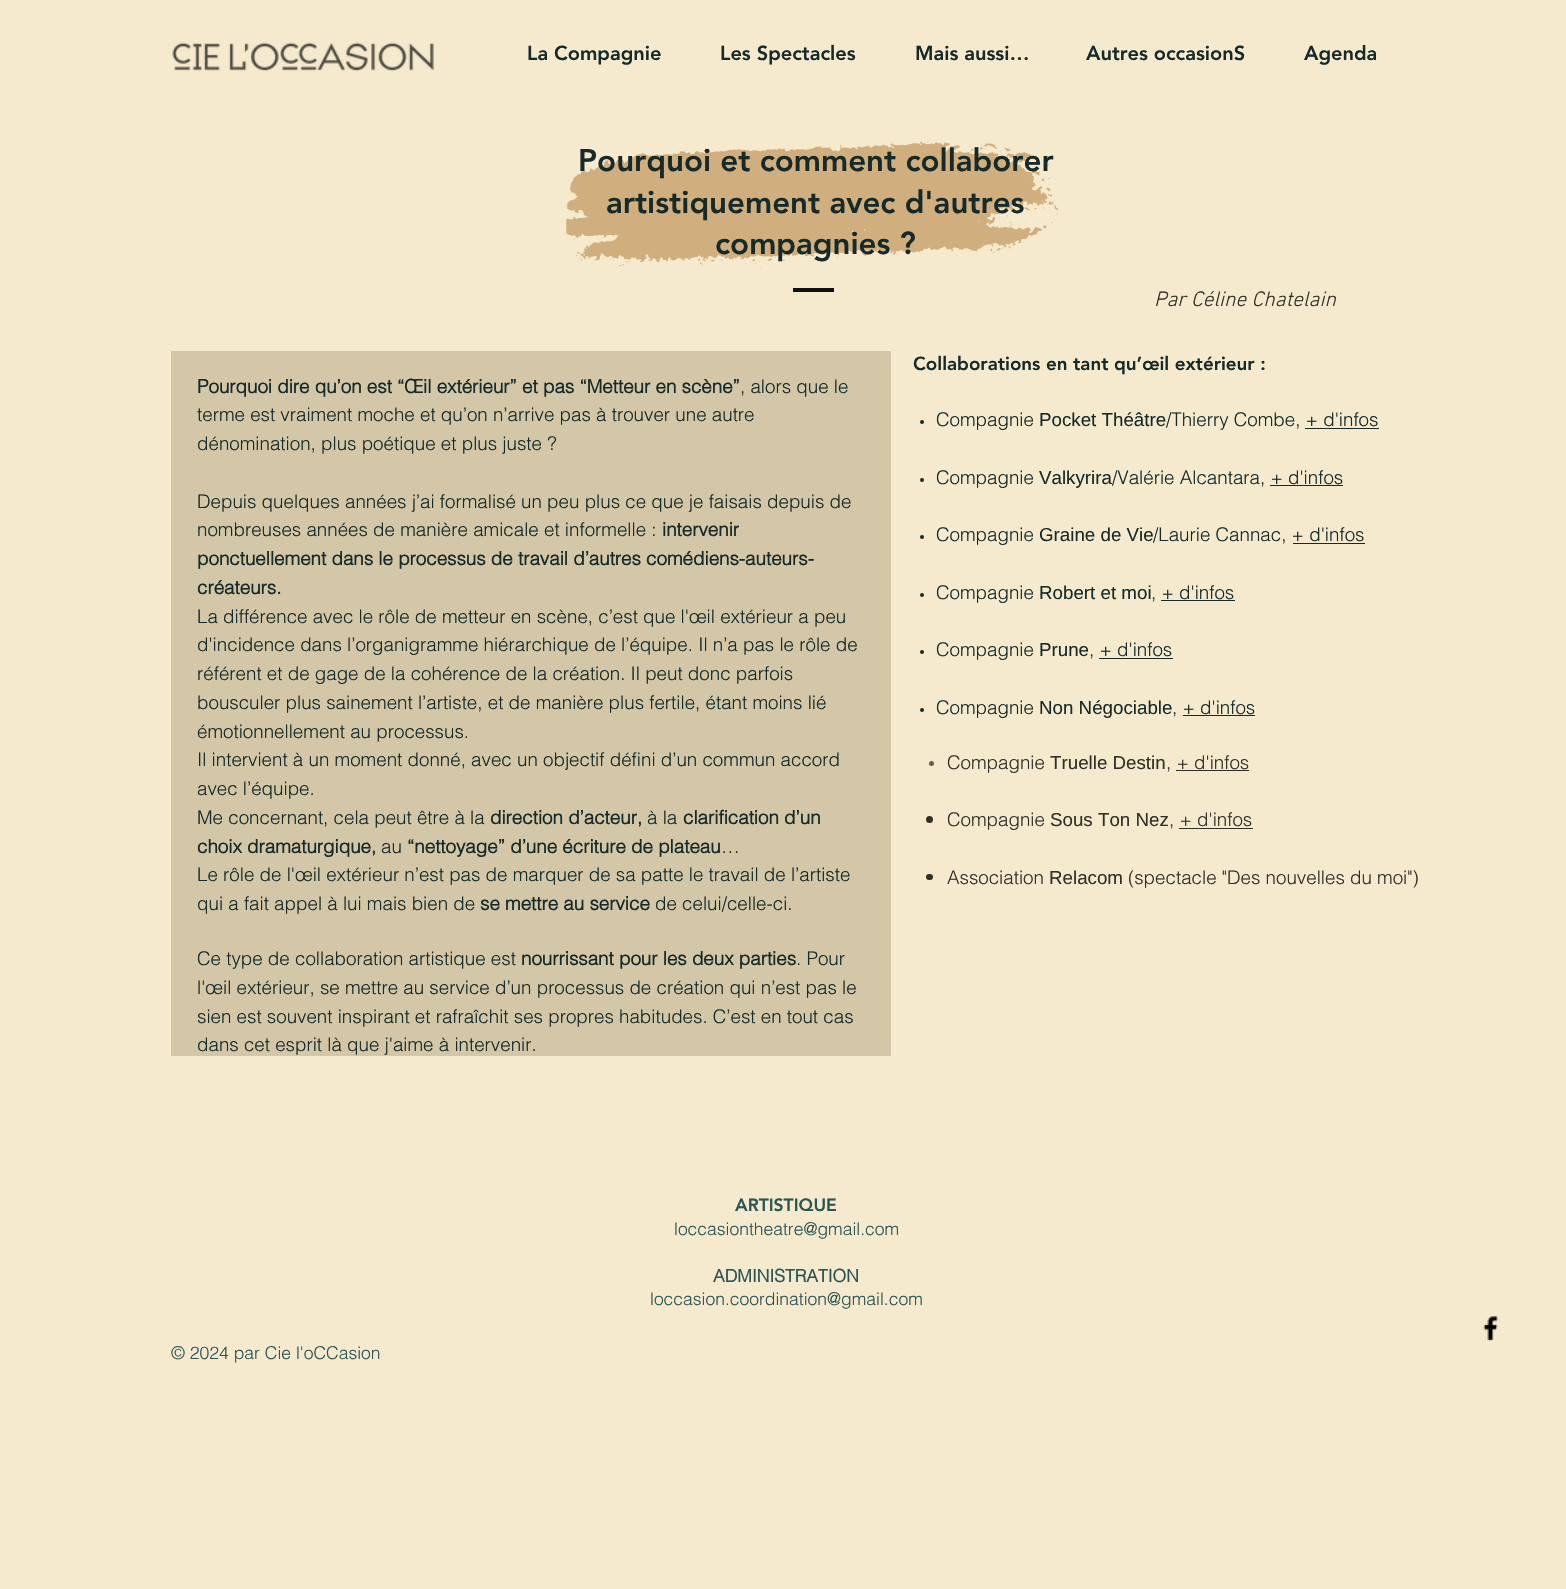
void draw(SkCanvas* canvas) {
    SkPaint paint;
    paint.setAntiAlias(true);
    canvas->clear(0xFFF5EACE);
    canvas->drawImageRect(SkImages::DeferredFromEncodedData(SkData::MakeFromFileName("img1.png")), SkRect::MakeXYWH(172, 42, 262, 30), SkSamplingOptions());
    SkFont font1(fontMgr->matchFamilyStyle("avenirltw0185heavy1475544", SkFontStyle(900, SkFontStyle::kNormal_Width, SkFontStyle::kUpright_Slant)), 20);
    font1.setSubpixel(true);
    paint.setColor(0xFF162A2A);
    canvas->drawString("La Compagnie", 527, 60, font1, paint);
    canvas->drawString("Les Spectacles", 720, 60, font1, paint);
    canvas->drawString("Mais aussi…", 915, 60, font1, paint);
    canvas->drawString("Autres occasionS", 1086, 60, font1, paint);
    canvas->drawString("Agenda", 1304, 60, font1, paint);
    canvas->drawImageRect(SkImages::DeferredFromEncodedData(SkData::MakeFromFileName("img2.png")), SkRect::MakeXYWH(566, 141, 493, 128), SkSamplingOptions());
    SkFont font2(fontMgr->matchFamilyStyle("avenirltw0185heavy1475544", SkFontStyle(900, SkFontStyle::kNormal_Width, SkFontStyle::kUpright_Slant)), 31.25f);
    font2.setSubpixel(true);
    canvas->drawString("Pourquoi et comment collaborer", 578, 171, font2, paint);
    canvas->drawString("artistiquement avec d'autres", 606, 213, font2, paint);
    canvas->drawString("compagnies ?", 715, 254, font2, paint);
    paint.setColor(0xFF0F0F0F);
    canvas->drawRect(SkRect::MakeXYWH(793, 288, 41, 4), paint);
    SkFont font3(fontMgr->matchFamilyStyle("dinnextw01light", SkFontStyle(300, SkFontStyle::kNormal_Width, SkFontStyle::kItalic_Slant)), 21.25f);
    font3.setSubpixel(true);
    paint.setColor(0xFF312F29);
    canvas->drawString("Par Céline Chatelain", 1154, 306, font3, paint);
    paint.setColor(0xFFD3C7A7);
    canvas->drawRect(SkRect::MakeXYWH(171, 351, 720, 705), paint);
    SkFont font4(fontMgr->matchFamilyStyle("avenirltw0185heavy1475544", SkFontStyle(900, SkFontStyle::kNormal_Width, SkFontStyle::kUpright_Slant)), 18.75f);
    font4.setSubpixel(true);
    paint.setColor(0xFF162A2A);
    canvas->drawString("Collaborations en tant qu’œil extérieur :", 913, 370, font4, paint);
    canvas->drawCircle(922, 422, 2, paint);
    SkFont font5(fontMgr->matchFamilyStyle("helvetica", SkFontStyle(300, SkFontStyle::kNormal_Width, SkFontStyle::kUpright_Slant)), 18.75f);
    font5.setSubpixel(true);
    canvas->drawString("Compagnie", 936, 426, font5, paint);
    SkFont font6(fontMgr->matchFamilyStyle("Liberation Sans", SkFontStyle::Normal()), 18.75f);
    font6.setSubpixel(true);
    canvas->drawString("Pocket Théâtre", 1039, 426, font6, paint);
    canvas->drawString("/Thierry Combe, + d'infos", 1166, 426, font5, paint);
    canvas->drawRect(SkRect::MakeXYWH(1305, 428, 74, 1), paint);
    canvas->drawCircle(922, 480, 2, paint);
    canvas->drawString("Compagnie", 936, 484, font5, paint);
    canvas->drawString("Valkyrira", 1039, 484, font6, paint);
    canvas->drawString("/Valérie Alcantara, + d'infos", 1112, 484, font5, paint);
    canvas->drawRect(SkRect::MakeXYWH(1270, 485, 73, 1), paint);
    canvas->drawCircle(922, 537, 2, paint);
    canvas->drawString("Compagnie", 936, 541, font5, paint);
    canvas->drawString("Graine de Vie", 1039, 541, font6, paint);
    canvas->drawString("/Laurie Cannac, + d'infos", 1153, 541, font5, paint);
    canvas->drawRect(SkRect::MakeXYWH(1293, 543, 72, 1), paint);
    canvas->drawCircle(922, 595, 2, paint);
    canvas->drawString("Compagnie", 936, 599, font5, paint);
    canvas->drawString("Robert et moi", 1039, 599, font6, paint);
    canvas->drawString(", + d'infos", 1151, 599, font5, paint);
    canvas->drawRect(SkRect::MakeXYWH(1161, 600, 74, 1), paint);
    canvas->drawCircle(922, 652, 2, paint);
    canvas->drawString("Compagnie", 936, 656, font5, paint);
    canvas->drawString("Prune", 1039, 656, font6, paint);
    canvas->drawString(", + d'infos", 1089, 656, font5, paint);
    canvas->drawRect(SkRect::MakeXYWH(1099, 658, 74, 1), paint);
    canvas->drawCircle(922, 710, 2, paint);
    canvas->drawString("Compagnie", 936, 714, font5, paint);
    canvas->drawString("Non Négociable", 1039, 714, font6, paint);
    canvas->drawString(", + d'infos", 1172, 714, font5, paint);
    canvas->drawRect(SkRect::MakeXYWH(1183, 715, 72, 1), paint);
    paint.setColor(0xFF625E52);
    canvas->drawCircle(931.5f, 763.5f, 2.5f, paint);
    paint.setColor(0xFF312F29);
    canvas->drawString("Compagnie", 947, 769, font5, paint);
    canvas->drawString("Truelle Destin", 1050, 769, font6, paint);
    canvas->drawString(", + d'infos", 1166, 769, font5, paint);
    canvas->drawRect(SkRect::MakeXYWH(1176, 770, 73, 1), paint);
    canvas->drawCircle(929.5f, 819.5f, 3.5f, paint);
    canvas->drawString("Compagnie", 947, 826, font5, paint);
    canvas->drawString("Sous Ton Nez", 1050, 826, font6, paint);
    canvas->drawString(", + d'infos", 1169, 826, font5, paint);
    canvas->drawRect(SkRect::MakeXYWH(1179, 828, 74, 1), paint);
    canvas->drawRoundRect(SkRect::MakeXYWH(926, 874, 7, 6), 3, 3, paint);
    canvas->drawString("Association", 947, 884, font5, paint);
    canvas->drawString("Relacom", 1049, 884, font6, paint);
    canvas->drawString("(spectacle \"Des nouvelles du moi\")", 1128, 884, font5, paint);
    SkFont font7(fontMgr->matchFamilyStyle("helvetica", SkFontStyle::Bold()), 18.75f);
    font7.setSubpixel(true);
    paint.setColor(0xFF162A2A);
    canvas->drawString("Pourquoi dire qu’on est “Œil extérieur” et pas “Metteur en scène”", 197, 393, font7, paint);
    canvas->drawString(", alors que le", 740, 393, font5, paint);
    canvas->drawString("terme est vraiment moche et qu’on n’arrive pas à trouver une autre", 197, 421, font5, paint);
    canvas->drawString("dénomination, plus poétique et plus juste ?", 197, 450, font5, paint);
    canvas->drawString("Depuis quelques années j’ai formalisé un peu plus ce que je faisais depuis de", 197, 508, font5, paint);
    canvas->drawString("nombreuses années de manière amicale et informelle :", 197, 536, font5, paint);
    canvas->drawString("intervenir", 662, 536, font7, paint);
    canvas->drawString("ponctuellement dans le processus de travail d’autres comédiens-auteurs-", 197, 565, font7, paint);
    canvas->drawString("créateurs.", 197, 594, font7, paint);
    canvas->drawString("La différence avec le rôle de metteur en scène, c’est que l'œil extérieur a peu", 197, 623, font5, paint);
    canvas->drawString("d'incidence dans l’organigramme hiérarchique de l’équipe. Il n’a pas le rôle de", 197, 651, font5, paint);
    canvas->drawString("référent et de gage de la cohérence de la création. Il peut donc parfois", 197, 680, font5, paint);
    canvas->drawString("bousculer plus sainement l’artiste, et de manière plus fertile, étant moins lié", 197, 709, font5, paint);
    canvas->drawString("émotionnellement au processus.", 197, 738, font5, paint);
    canvas->drawString("Il intervient à un moment donné, avec un objectif défini d’un commun accord", 197, 766, font5, paint);
    canvas->drawString("avec l’équipe.", 197, 795, font5, paint);
    canvas->drawString("Me concernant, cela peut être à la", 197, 824, font5, paint);
    canvas->drawString("direction d’acteur,", 490, 824, font7, paint);
    canvas->drawString("à la", 647, 824, font5, paint);
    canvas->drawString("clarification d’un", 683, 824, font7, paint);
    canvas->drawString("choix dramaturgique,", 197, 853, font7, paint);
    canvas->drawString("au", 381, 853, font5, paint);
    canvas->drawString("“nettoyage” d’une écriture de plateau", 407, 853, font7, paint);
    canvas->drawString("…", 721, 853, font5, paint);
    canvas->drawString("Le rôle de l'œil extérieur n’est pas de marquer de sa patte le travail de l’artiste", 197, 881, font5, paint);
    canvas->drawString("qui a fait appel à lui mais bien de", 197, 910, font5, paint);
    canvas->drawString("se mettre au service", 480, 910, font7, paint);
    canvas->drawString("de celui/celle-ci.", 655, 910, font5, paint);
    canvas->drawString("Ce type de collaboration artistique est", 197, 965, font5, paint);
    canvas->drawString("nourrissant pour les deux parties", 521, 965, font7, paint);
    canvas->drawString(". Pour", 796, 965, font5, paint);
    canvas->drawString("l'œil extérieur, se mettre au service d’un processus de création qui n’est pas le", 197, 994, font5, paint);
    canvas->drawString("sien est souvent inspirant et rafraîchit ses propres habitudes. C’est en tout cas", 197, 1023, font5, paint);
    canvas->drawString("dans cet esprit là que j'aime à intervenir.", 197, 1051, font5, paint);
    SkFont font8(fontMgr->matchFamilyStyle("avenirltw0185heavy1475544", SkFontStyle(900, SkFontStyle::kNormal_Width, SkFontStyle::kUpright_Slant)), 17.5f);
    font8.setSubpixel(true);
    paint.setColor(0xFF2B5455);
    canvas->drawString("ARTISTIQUE", 735, 1211, font8, paint);
    SkFont font9(fontMgr->matchFamilyStyle("helvetica", SkFontStyle(300, SkFontStyle::kNormal_Width, SkFontStyle::kUpright_Slant)), 17.5f);
    font9.setSubpixel(true);
    canvas->drawString("loccasiontheatre@gmail.com", 674, 1235, font9, paint);
    SkFont font10(fontMgr->matchFamilyStyle("helvetica", SkFontStyle::Bold()), 17.5f);
    font10.setSubpixel(true);
    canvas->drawString("ADMINISTRATION", 713, 1282, font10, paint);
    canvas->drawString("loccasion.coordination@gmail.com", 650, 1305, font9, paint);
    canvas->drawImageRect(SkImages::DeferredFromEncodedData(SkData::MakeFromFileName("img3.png")), SkRect::MakeXYWH(1483, 1316, 15, 25), SkSamplingOptions());
    canvas->drawString("© 2024 par Cie l'oCCasion", 171, 1359, font9, paint);
}
